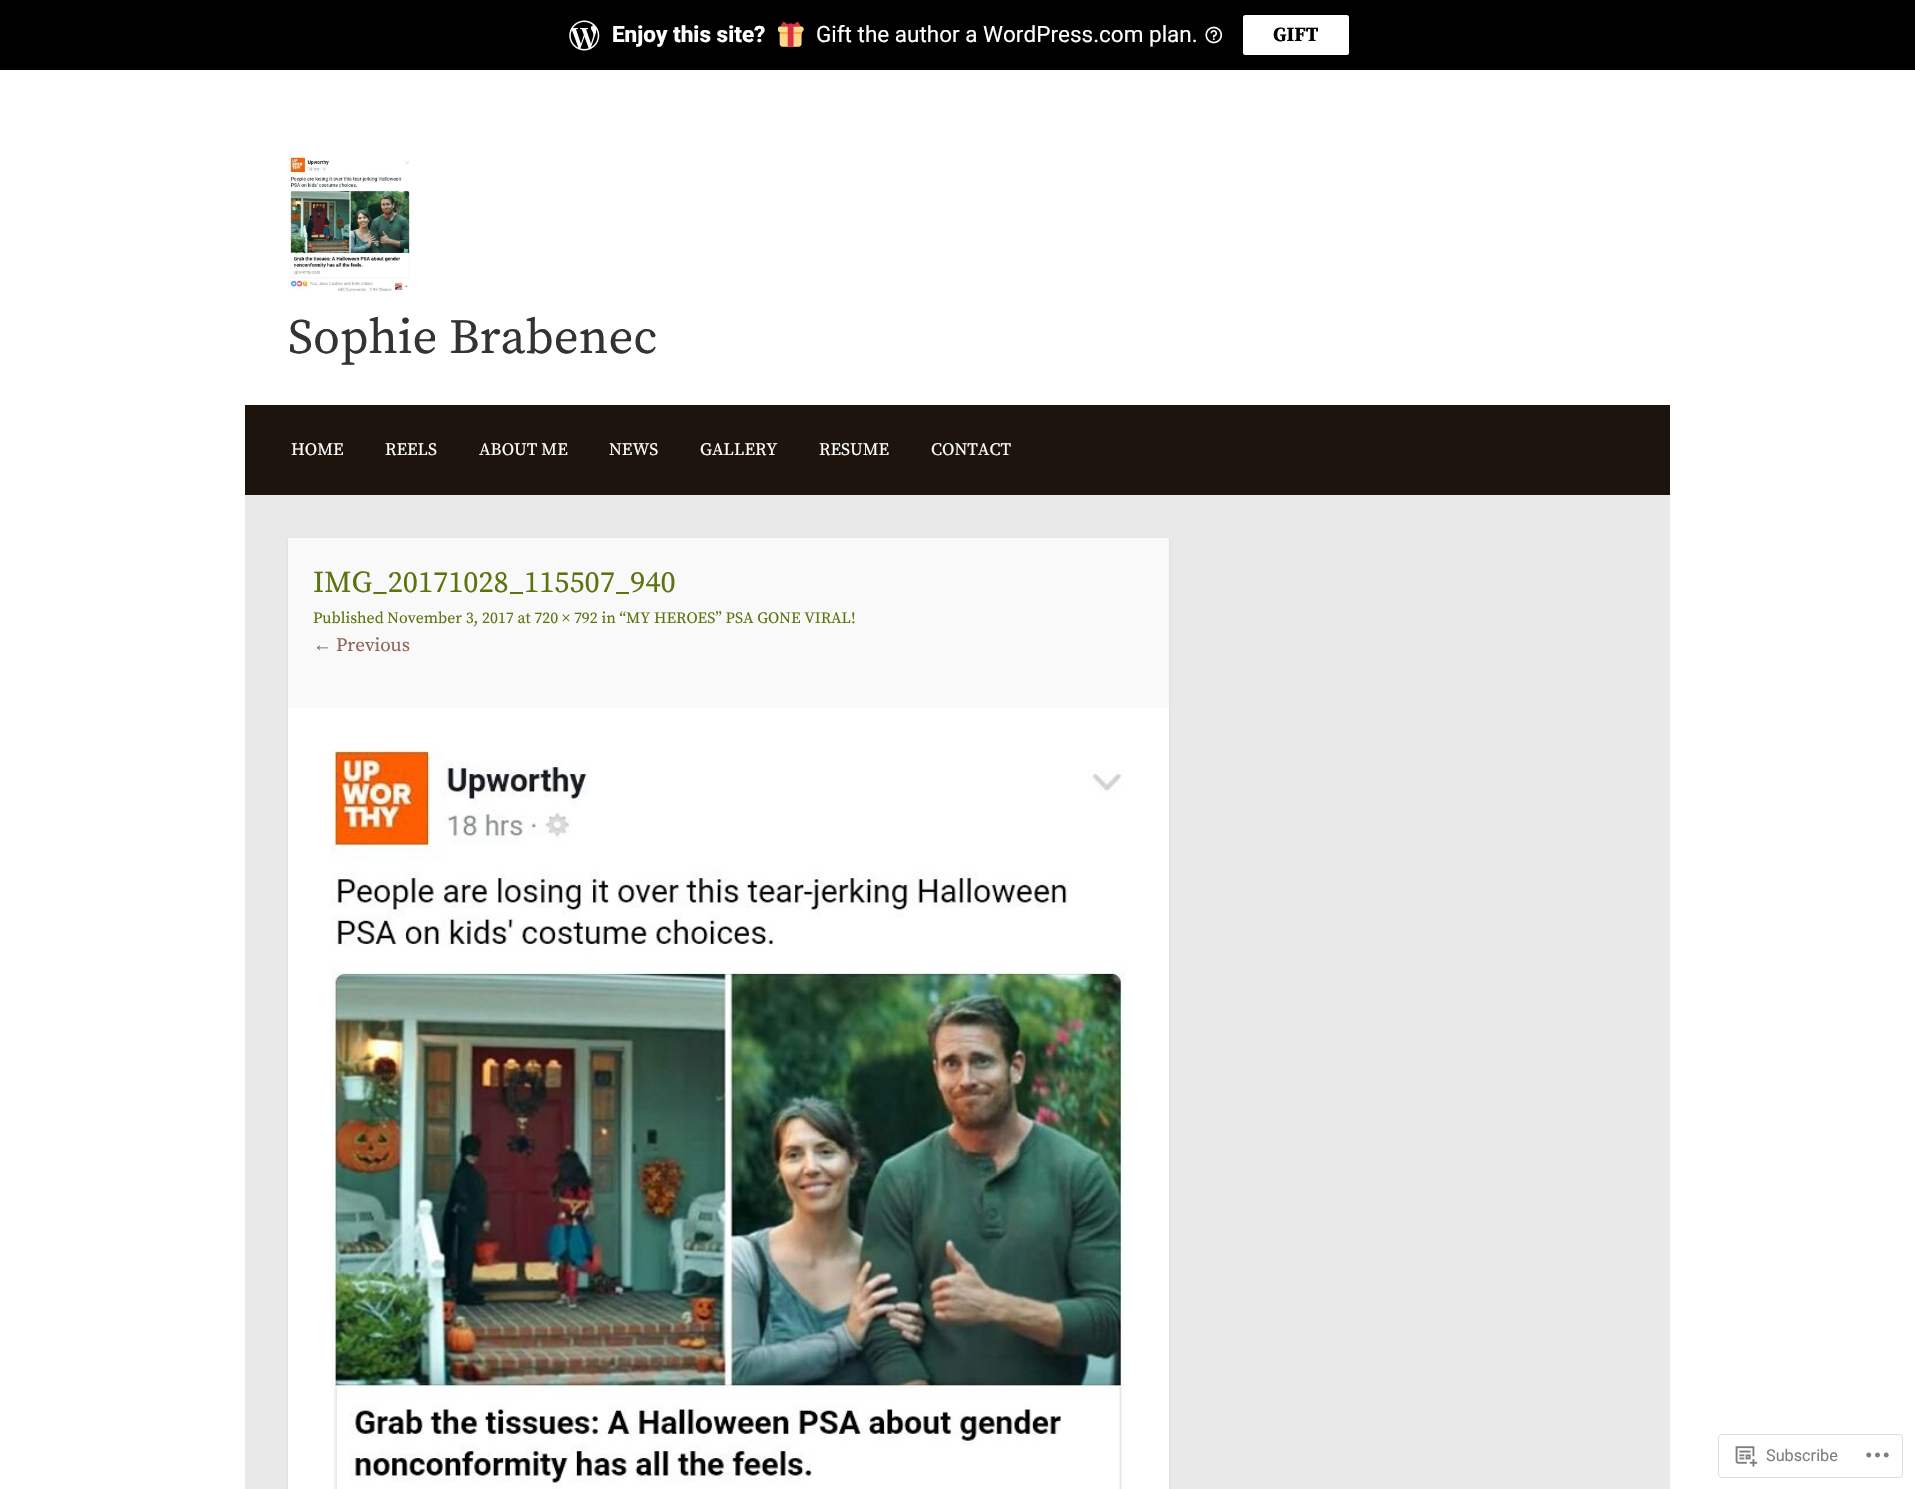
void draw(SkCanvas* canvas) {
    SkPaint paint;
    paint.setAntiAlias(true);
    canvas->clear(0xFFFFFFFF);
    paint.setColor(0xFF000000);
    canvas->drawRect(SkRect::MakeXYWH(0, 0, 1915, 70), paint);
    canvas->drawImageRect(SkImages::DeferredFromEncodedData(SkData::MakeFromFileName("img1.png")), SkRect::MakeXYWH(569, 20, 31, 31), SkSamplingOptions());
    SkFont font1(fontMgr->matchFamilyStyle("Roboto", SkFontStyle(800, SkFontStyle::kNormal_Width, SkFontStyle::kUpright_Slant)), 22.5f);
    font1.setSubpixel(true);
    paint.setColor(0xFFFFFFFF);
    canvas->drawString("Enjoy this site?", 612, 42, font1, paint);
    canvas->drawImageRect(SkImages::DeferredFromEncodedData(SkData::MakeFromFileName("img2.png")), SkRect::MakeXYWH(778, 21, 26, 26), SkSamplingOptions());
    SkFont font2(fontMgr->matchFamilyStyle("Roboto", SkFontStyle::Normal()), 22.5f);
    font2.setSubpixel(true);
    canvas->drawString("Gift the author a WordPress.com plan.", 816, 42, font2, paint);
    canvas->drawImageRect(SkImages::DeferredFromEncodedData(SkData::MakeFromFileName("img3.png")), SkRect::MakeXYWH(1205, 26, 18, 18), SkSamplingOptions());
    canvas->drawRoundRect(SkRect::MakeXYWH(1243, 15, 106, 40), 2.5f, 2.5f, paint);
    SkFont font3(fontMgr->matchFamilyStyle("Source Serif Pro", SkFontStyle::Bold()), 20);
    font3.setSubpixel(true);
    paint.setColor(0xFF000000);
    canvas->drawString("GIFT", 1273, 41, font3, paint);
    canvas->drawImageRect(SkImages::DeferredFromEncodedData(SkData::MakeFromFileName("img4.png")), SkRect::MakeXYWH(287, 155, 126, 138), SkSamplingOptions());
    SkFont font4(fontMgr->matchFamilyStyle("Source Serif Pro", SkFontStyle::Normal()), 49);
    font4.setSubpixel(true);
    paint.setColor(0xFF333333);
    canvas->drawString("Sophie Brabenec", 288, 353, font4, paint);
    paint.setColor(0xFF1C140D);
    canvas->drawRect(SkRect::MakeXYWH(245, 405, 1425, 90), paint);
    SkFont font5(fontMgr->matchFamilyStyle("Source Serif Pro", SkFontStyle::Normal()), 17.5f);
    font5.setSubpixel(true);
    paint.setColor(0xFFFFFFFF);
    canvas->drawString("HOME", 291, 455, font5, paint);
    canvas->drawString("REELS", 385, 455, font5, paint);
    canvas->drawString("ABOUT ME", 479, 455, font5, paint);
    canvas->drawString("NEWS", 609, 455, font5, paint);
    canvas->drawString("GALLERY", 700, 455, font5, paint);
    canvas->drawString("RESUME", 819, 455, font5, paint);
    canvas->drawString("CONTACT", 931, 455, font5, paint);
    paint.setColor(0xFFE9E9E9);
    canvas->drawRect(SkRect::MakeXYWH(245, 495, 1425, 994), paint);
    paint.setColor(0x1A000000);
    paint.setMaskFilter(SkMaskFilter::MakeBlur(kNormal_SkBlurStyle, 1));
    canvas->drawRect(SkRect::MakeXYWH(288, 539, 881, 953), paint);
    paint.setMaskFilter(nullptr);
    paint.setColor(0xFFFFFFFF);
    canvas->drawRect(SkRect::MakeXYWH(288, 708, 881, 781), paint);
    paint.setColor(0xFFF9F9F9);
    canvas->drawRect(SkRect::MakeXYWH(288, 538, 881, 170), paint);
    SkFont font6(fontMgr->matchFamilyStyle("Source Serif Pro", SkFontStyle::Normal()), 30.25f);
    font6.setSubpixel(true);
    paint.setColor(0xFF5C7410);
    canvas->drawString("IMG_20171028_115507_940", 313, 592, font6, paint);
    SkFont font7(fontMgr->matchFamilyStyle("Source Serif Pro", SkFontStyle::Normal()), 15.85f);
    font7.setSubpixel(true);
    canvas->drawString("Published November 3, 2017 at 720 × 792 in “MY HEROES” PSA GONE VIRAL!", 313, 623, font7, paint);
    SkFont font8(fontMgr->matchFamilyStyle("Liberation Serif", SkFontStyle::Normal()), 19);
    font8.setSubpixel(true);
    paint.setColor(0xFF8D6553);
    canvas->drawString("←", 313, 651, font8, paint);
    SkFont font9(fontMgr->matchFamilyStyle("Source Serif Pro", SkFontStyle::Normal()), 19);
    font9.setSubpixel(true);
    canvas->drawString("Previous", 336, 651, font9, paint);
    canvas->drawImageRect(SkImages::DeferredFromEncodedData(SkData::MakeFromFileName("img5.png")), SkRect::MakeXYWH(330, 750, 795, 739), SkSamplingOptions());
    paint.setStyle(SkPaint::kStroke_Style);
    paint.setStrokeWidth(1);
    paint.setColor(0xFFDDDDDF);
    canvas->drawRoundRect(SkRect::MakeXYWH(1718.5f, 1434.5f, 184, 43), 3.5f, 3.5f, paint);
    canvas->drawImageRect(SkImages::DeferredFromEncodedData(SkData::MakeFromFileName("img6.png")), SkRect::MakeXYWH(1735, 1446, 23, 21), SkSamplingOptions());
    SkFont font10(fontMgr->matchFamilyStyle("Roboto", SkFontStyle::Normal()), 16.25f);
    font10.setSubpixel(true);
    paint.setStyle(SkPaint::kFill_Style);
    paint.setColor(0xFF7B7F85);
    canvas->drawString("Subscribe", 1766, 1461, font10, paint);
    canvas->drawImageRect(SkImages::DeferredFromEncodedData(SkData::MakeFromFileName("img7.png")), SkRect::MakeXYWH(1866, 1452, 23, 6), SkSamplingOptions());
}
